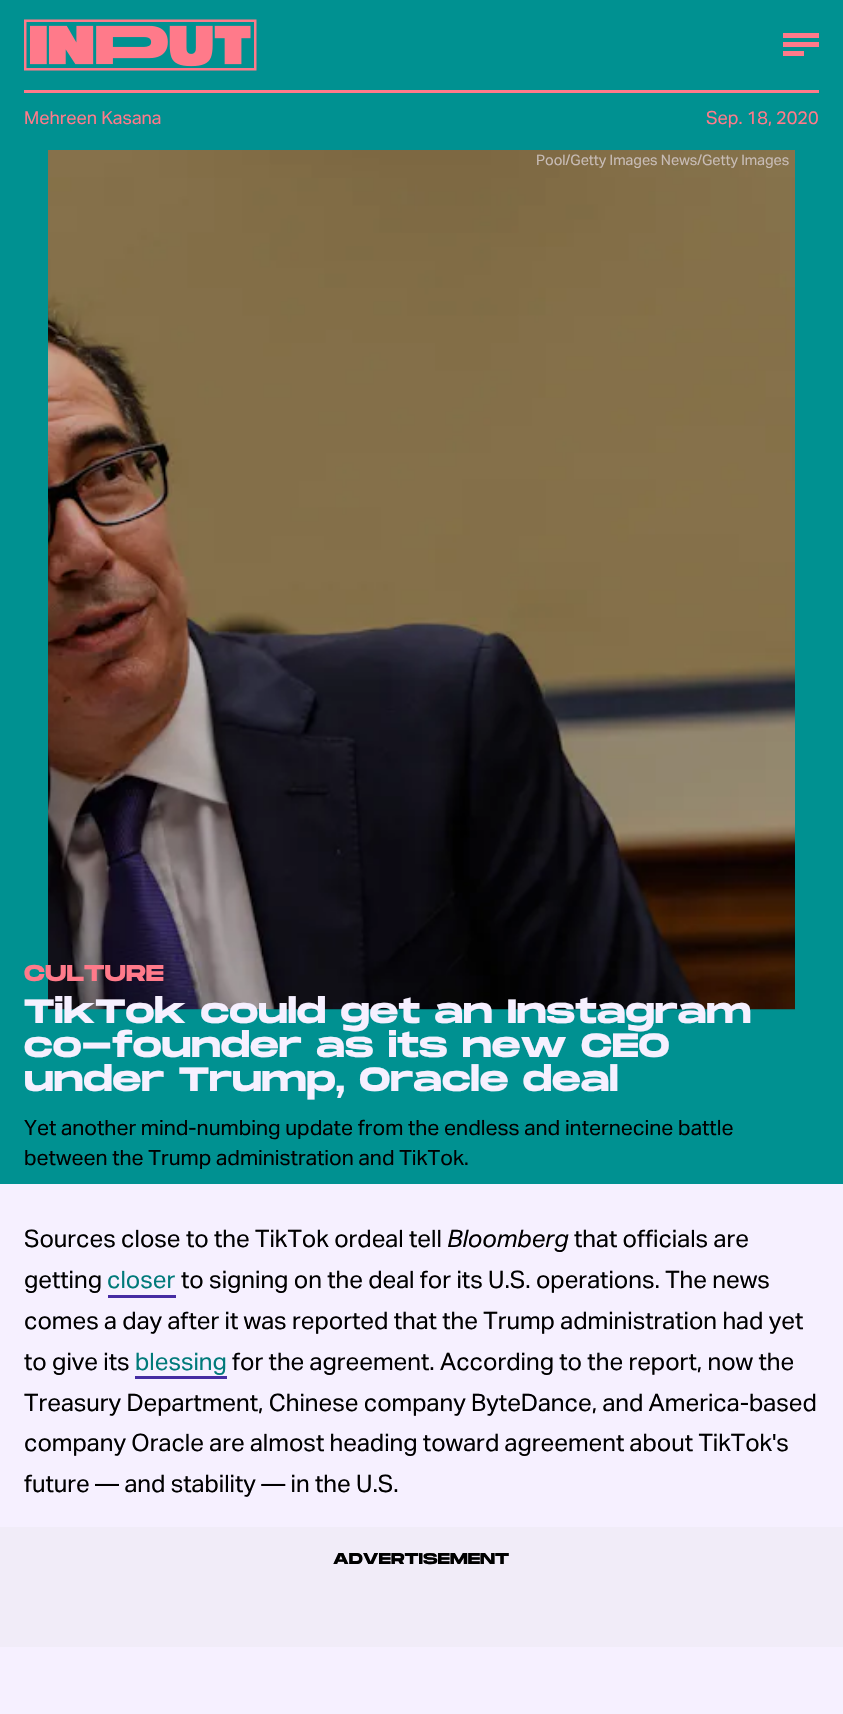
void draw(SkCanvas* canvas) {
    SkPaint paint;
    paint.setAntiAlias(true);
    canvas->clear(0xFFF6F0FF);
    paint.setColor(0xFF009191);
    canvas->drawRect(SkRect::MakeXYWH(0, 0, 843, 1184), paint);
    canvas->drawImageRect(SkImages::DeferredFromEncodedData(SkData::MakeFromFileName("img1.png")), SkRect::MakeXYWH(24, 19, 233, 52), SkSamplingOptions());
    paint.setColor(0xFFFF7A8A);
    canvas->drawRect(SkRect::MakeXYWH(783, 33, 36, 5), paint);
    canvas->drawRect(SkRect::MakeXYWH(783, 42, 36, 5), paint);
    canvas->drawRect(SkRect::MakeXYWH(783, 51, 21, 5), paint);
    canvas->drawRect(SkRect::MakeXYWH(24, 90, 795, 3), paint);
    SkFont font1(fontMgr->matchFamilyStyle("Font", SkFontStyle::Normal()), 18);
    font1.setSubpixel(true);
    canvas->drawString("Mehreen Kasana", 24, 124, font1, paint);
    canvas->drawString("Sep. 18, 2020", 706, 124, font1, paint);
    canvas->drawImageRect(SkImages::DeferredFromEncodedData(SkData::MakeFromFileName("img2.png")), SkRect::MakeXYWH(48, 150, 747, 860), SkSamplingOptions());
    SkFont font2(fontMgr->matchFamilyStyle("Font", SkFontStyle::Normal()), 14.4f);
    font2.setSubpixel(true);
    paint.setColor(0xFFC8BCB6);
    canvas->drawString("Pool/Getty Images News/Getty Images", 536, 165, font2, paint);
    SkFont font3(fontMgr->matchFamilyStyle("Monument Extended", SkFontStyle::Bold()), 22.75f);
    font3.setSubpixel(true);
    paint.setColor(0xFFFF7A8A);
    canvas->drawString("CULTURE", 24, 981, font3, paint);
    SkFont font4(fontMgr->matchFamilyStyle("Monument Extended", SkFontStyle::Bold()), 33.6f);
    font4.setSubpixel(true);
    paint.setColor(0xFFF6F0FF);
    canvas->drawString("TikTok could get an Instagram", 24, 1023, font4, paint);
    canvas->drawString("co-founder as its new CEO", 24, 1057, font4, paint);
    canvas->drawString("under Trump, Oracle deal", 24, 1091, font4, paint);
    SkFont font5(fontMgr->matchFamilyStyle("Font", SkFontStyle::Normal()), 21.1f);
    font5.setSubpixel(true);
    paint.setColor(0xFF000000);
    canvas->drawString("Yet another mind-numbing update from the endless and internecine battle", 24, 1135, font5, paint);
    canvas->drawString("between the Trump administration and TikTok.", 24, 1165, font5, paint);
    SkFont font6(fontMgr->matchFamilyStyle("Font", SkFontStyle::Normal()), 24);
    font6.setSubpixel(true);
    canvas->drawString("Sources close to the TikTok ordeal tell", 24, 1247, font6, paint);
    SkFont font7(fontMgr->matchFamilyStyle("Font", SkFontStyle::Italic()), 24);
    font7.setSubpixel(true);
    canvas->drawString("Bloomberg", 447, 1247, font7, paint);
    canvas->drawString("that officials are", 574, 1247, font6, paint);
    canvas->drawString("getting", 24, 1288, font6, paint);
    paint.setColor(0xFF007A7A);
    canvas->drawString("closer", 107, 1288, font6, paint);
    paint.setColor(0xFF462CA3);
    canvas->drawRect(SkRect::MakeXYWH(108, 1295, 68, 3), paint);
    paint.setColor(0xFF000000);
    canvas->drawString("to signing on the deal for its U.S. operations. The news", 181, 1288, font6, paint);
    canvas->drawString("comes a day after it was reported that the Trump administration had yet", 24, 1329, font6, paint);
    canvas->drawString("to give its", 24, 1370, font6, paint);
    paint.setColor(0xFF007A7A);
    canvas->drawString("blessing", 135, 1370, font6, paint);
    paint.setColor(0xFF462CA3);
    canvas->drawRect(SkRect::MakeXYWH(135, 1376, 92, 3), paint);
    paint.setColor(0xFF000000);
    canvas->drawString("for the agreement. According to the report, now the", 232, 1370, font6, paint);
    canvas->drawString("Treasury Department, Chinese company ByteDance, and America-based", 24, 1411, font6, paint);
    canvas->drawString("company Oracle are almost heading toward agreement about TikTok's", 24, 1451, font6, paint);
    canvas->drawString("future — and stability — in the U.S.", 24, 1492, font6, paint);
    paint.setColor(0xFFF1ECF8);
    canvas->drawRect(SkRect::MakeXYWH(0, 1527, 843, 120), paint);
    SkFont font8(fontMgr->matchFamilyStyle("Monument Extended", SkFontStyle::Bold()), 15.6f);
    font8.setSubpixel(true);
    paint.setColor(0xFF000000);
    canvas->drawString("ADVERTISEMENT", 333, 1564, font8, paint);
}
